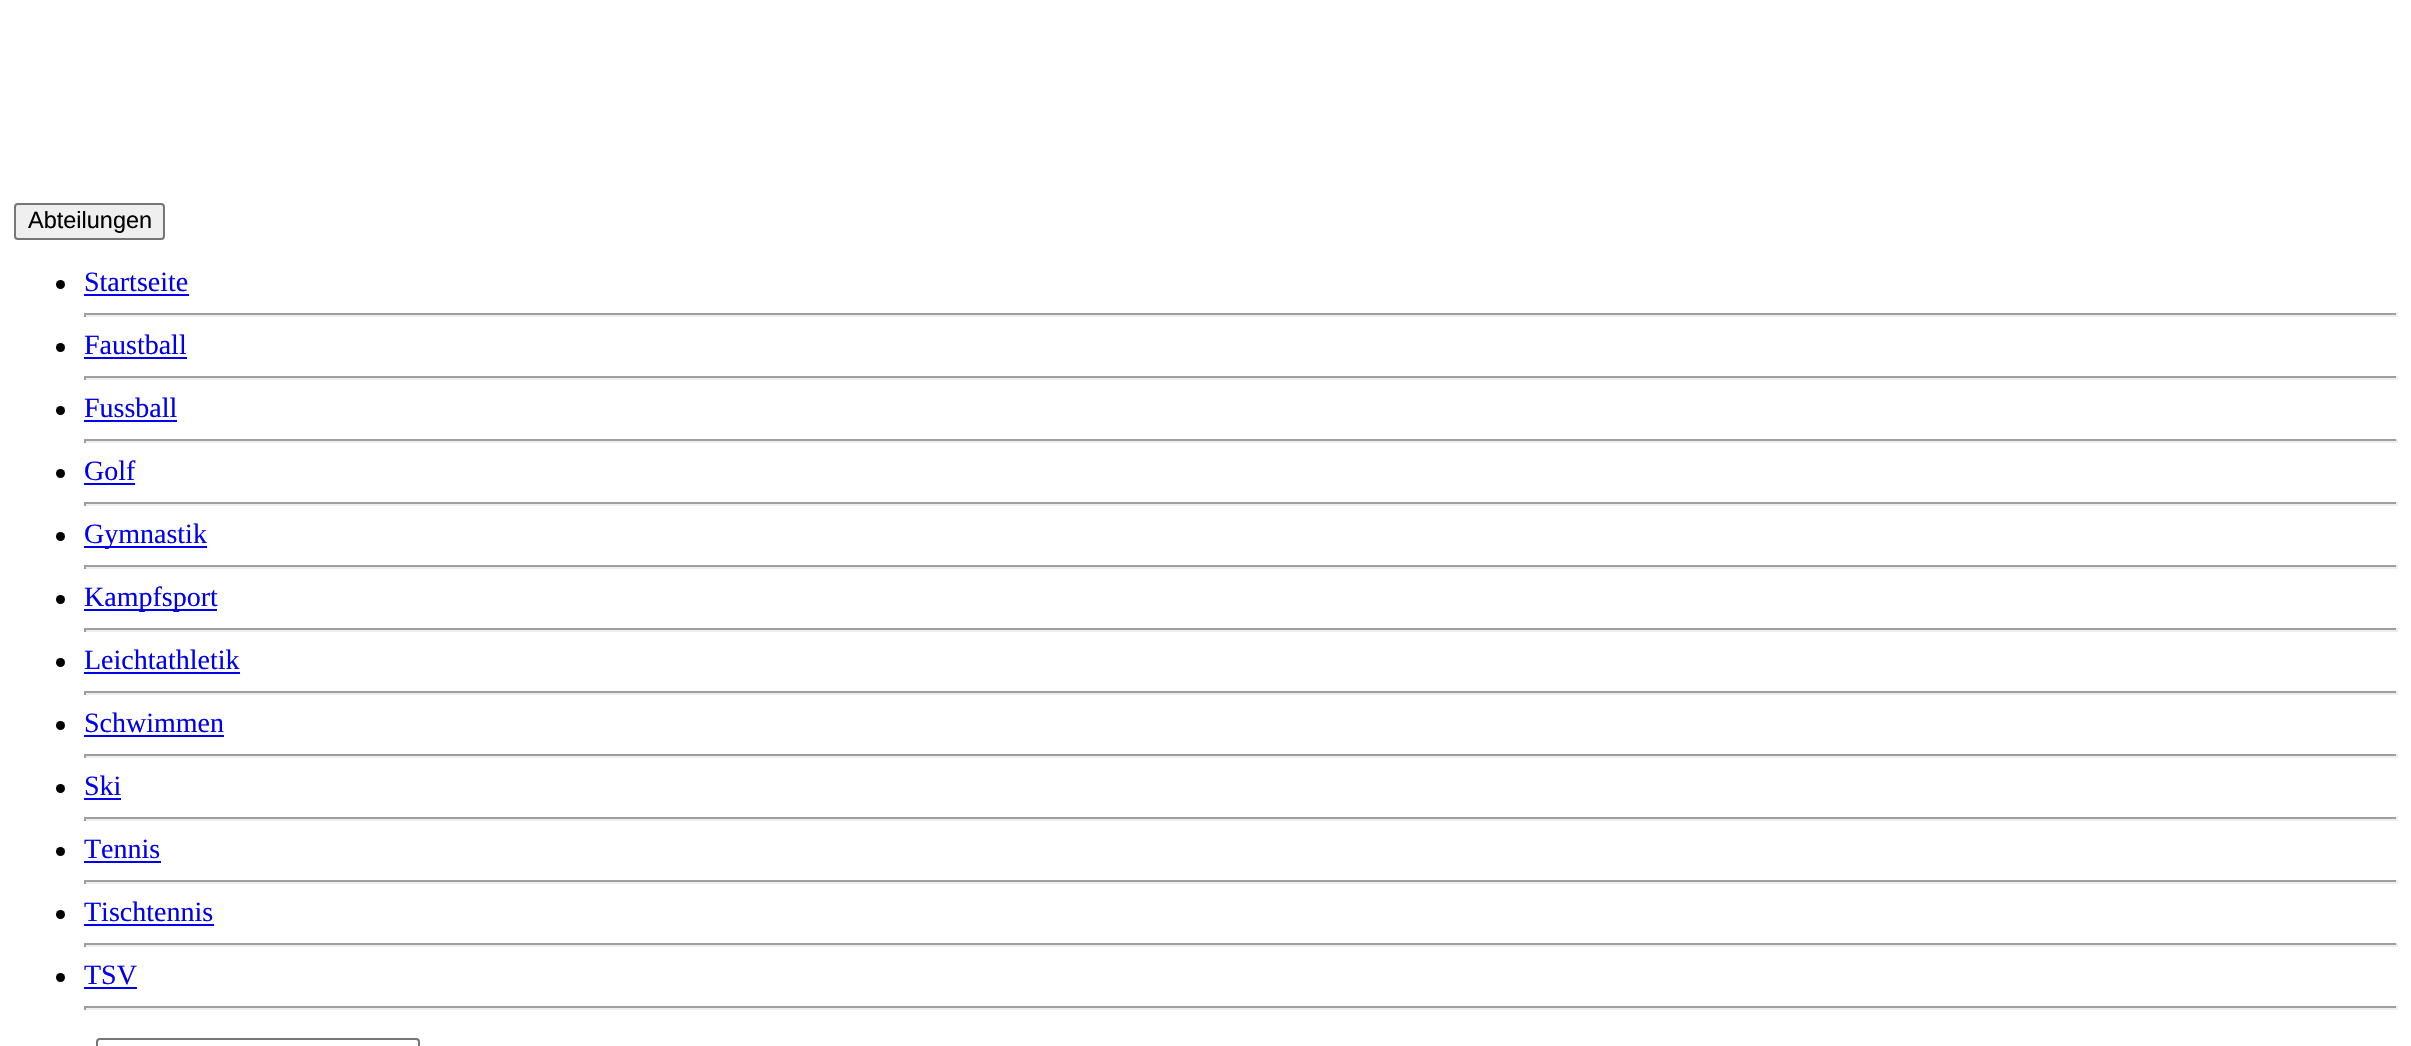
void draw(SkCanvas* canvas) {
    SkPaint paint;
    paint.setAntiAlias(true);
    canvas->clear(0xFFFFFFFF);
    paint.setColor(0xFFEFEFEF);
    canvas->drawRoundRect(SkRect::MakeXYWH(15, 204, 149, 35), 3, 3, paint);
    paint.setStyle(SkPaint::kStroke_Style);
    paint.setStrokeWidth(2);
    paint.setColor(0xFF767676);
    canvas->drawRoundRect(SkRect::MakeXYWH(15, 204, 149, 35), 3, 3, paint);
    SkFont font1(fontMgr->matchFamilyStyle("Liberation Sans", SkFontStyle::Normal()), 23.5f);
    font1.setSubpixel(true);
    paint.setStyle(SkPaint::kFill_Style);
    paint.setColor(0xFF000000);
    canvas->drawString("Abteilungen", 28, 228, font1, paint);
    canvas->drawCircle(60.5f, 284.5f, 4.5f, paint);
    SkFont font2(fontMgr->matchFamilyStyle("Liberation Serif", SkFontStyle::Normal()), 28);
    font2.setSubpixel(true);
    paint.setColor(0xFF0000EE);
    canvas->drawString("Startseite", 84, 291, font2, paint);
    canvas->drawRect(SkRect::MakeXYWH(84, 294, 105, 2), paint);
    paint.setColor(0xFF9F9F9F);
    canvas->drawRect(SkRect::MakeXYWH(84, 313, 2314, 2), paint);
    paint.setColor(0xFFEEEEEE);
    canvas->drawRect(SkRect::MakeXYWH(2396, 313, 2, 4), paint);
    canvas->drawRect(SkRect::MakeXYWH(84, 315, 2314, 2), paint);
    paint.setColor(0xFF9F9F9F);
    canvas->drawRect(SkRect::MakeXYWH(84, 313, 2, 4), paint);
    paint.setColor(0xFF000000);
    canvas->drawCircle(60.5f, 347.5f, 4.5f, paint);
    paint.setColor(0xFF0000EE);
    canvas->drawString("Faustball", 84, 354, font2, paint);
    canvas->drawRect(SkRect::MakeXYWH(84, 357, 103, 2), paint);
    paint.setColor(0xFF9F9F9F);
    canvas->drawRect(SkRect::MakeXYWH(84, 376, 2314, 2), paint);
    paint.setColor(0xFFEEEEEE);
    canvas->drawRect(SkRect::MakeXYWH(2396, 376, 2, 4), paint);
    canvas->drawRect(SkRect::MakeXYWH(84, 378, 2314, 2), paint);
    paint.setColor(0xFF9F9F9F);
    canvas->drawRect(SkRect::MakeXYWH(84, 376, 2, 4), paint);
    paint.setColor(0xFF000000);
    canvas->drawCircle(60.5f, 410.5f, 4.5f, paint);
    paint.setColor(0xFF0000EE);
    canvas->drawString("Fussball", 84, 417, font2, paint);
    canvas->drawRect(SkRect::MakeXYWH(84, 420, 93, 2), paint);
    paint.setColor(0xFF9F9F9F);
    canvas->drawRect(SkRect::MakeXYWH(84, 439, 2314, 2), paint);
    paint.setColor(0xFFEEEEEE);
    canvas->drawRect(SkRect::MakeXYWH(2396, 439, 2, 4), paint);
    canvas->drawRect(SkRect::MakeXYWH(84, 441, 2314, 2), paint);
    paint.setColor(0xFF9F9F9F);
    canvas->drawRect(SkRect::MakeXYWH(84, 439, 2, 4), paint);
    paint.setColor(0xFF000000);
    canvas->drawCircle(60.5f, 473.5f, 4.5f, paint);
    paint.setColor(0xFF0000EE);
    canvas->drawString("Golf", 84, 480, font2, paint);
    canvas->drawRect(SkRect::MakeXYWH(84, 483, 51, 2), paint);
    paint.setColor(0xFF9F9F9F);
    canvas->drawRect(SkRect::MakeXYWH(84, 502, 2314, 2), paint);
    paint.setColor(0xFFEEEEEE);
    canvas->drawRect(SkRect::MakeXYWH(2396, 502, 2, 4), paint);
    canvas->drawRect(SkRect::MakeXYWH(84, 504, 2314, 2), paint);
    paint.setColor(0xFF9F9F9F);
    canvas->drawRect(SkRect::MakeXYWH(84, 502, 2, 4), paint);
    paint.setColor(0xFF000000);
    canvas->drawCircle(60.5f, 536.5f, 4.5f, paint);
    paint.setColor(0xFF0000EE);
    canvas->drawRect(SkRect::MakeXYWH(84, 546, 123, 2), paint);
    canvas->drawString("Gymnastik", 84, 543, font2, paint);
    paint.setColor(0xFF9F9F9F);
    canvas->drawRect(SkRect::MakeXYWH(84, 565, 2314, 2), paint);
    paint.setColor(0xFFEEEEEE);
    canvas->drawRect(SkRect::MakeXYWH(2396, 565, 2, 4), paint);
    canvas->drawRect(SkRect::MakeXYWH(84, 567, 2314, 2), paint);
    paint.setColor(0xFF9F9F9F);
    canvas->drawRect(SkRect::MakeXYWH(84, 565, 2, 4), paint);
    paint.setColor(0xFF000000);
    canvas->drawCircle(60.5f, 599.5f, 4.5f, paint);
    paint.setColor(0xFF0000EE);
    canvas->drawRect(SkRect::MakeXYWH(84, 609, 133, 2), paint);
    canvas->drawString("Kampfsport", 84, 606, font2, paint);
    paint.setColor(0xFF9F9F9F);
    canvas->drawRect(SkRect::MakeXYWH(84, 628, 2314, 2), paint);
    paint.setColor(0xFFEEEEEE);
    canvas->drawRect(SkRect::MakeXYWH(2396, 628, 2, 4), paint);
    canvas->drawRect(SkRect::MakeXYWH(84, 630, 2314, 2), paint);
    paint.setColor(0xFF9F9F9F);
    canvas->drawRect(SkRect::MakeXYWH(84, 628, 2, 4), paint);
    paint.setColor(0xFF000000);
    canvas->drawCircle(60.5f, 662.5f, 4.5f, paint);
    paint.setColor(0xFF0000EE);
    canvas->drawString("Leichtathletik", 84, 669, font2, paint);
    canvas->drawRect(SkRect::MakeXYWH(84, 672, 156, 2), paint);
    paint.setColor(0xFF9F9F9F);
    canvas->drawRect(SkRect::MakeXYWH(84, 691, 2314, 2), paint);
    paint.setColor(0xFFEEEEEE);
    canvas->drawRect(SkRect::MakeXYWH(2396, 691, 2, 4), paint);
    canvas->drawRect(SkRect::MakeXYWH(84, 693, 2314, 2), paint);
    paint.setColor(0xFF9F9F9F);
    canvas->drawRect(SkRect::MakeXYWH(84, 691, 2, 4), paint);
    paint.setColor(0xFF000000);
    canvas->drawCircle(60.5f, 725.5f, 4.5f, paint);
    paint.setColor(0xFF0000EE);
    canvas->drawString("Schwimmen", 84, 732, font2, paint);
    canvas->drawRect(SkRect::MakeXYWH(84, 735, 140, 2), paint);
    paint.setColor(0xFF9F9F9F);
    canvas->drawRect(SkRect::MakeXYWH(84, 754, 2314, 2), paint);
    paint.setColor(0xFFEEEEEE);
    canvas->drawRect(SkRect::MakeXYWH(2396, 754, 2, 4), paint);
    canvas->drawRect(SkRect::MakeXYWH(84, 756, 2314, 2), paint);
    paint.setColor(0xFF9F9F9F);
    canvas->drawRect(SkRect::MakeXYWH(84, 754, 2, 4), paint);
    paint.setColor(0xFF000000);
    canvas->drawCircle(60.5f, 788.5f, 4.5f, paint);
    paint.setColor(0xFF0000EE);
    canvas->drawString("Ski", 84, 795, font2, paint);
    canvas->drawRect(SkRect::MakeXYWH(84, 798, 37, 2), paint);
    paint.setColor(0xFF9F9F9F);
    canvas->drawRect(SkRect::MakeXYWH(84, 817, 2314, 2), paint);
    paint.setColor(0xFFEEEEEE);
    canvas->drawRect(SkRect::MakeXYWH(2396, 817, 2, 4), paint);
    canvas->drawRect(SkRect::MakeXYWH(84, 819, 2314, 2), paint);
    paint.setColor(0xFF9F9F9F);
    canvas->drawRect(SkRect::MakeXYWH(84, 817, 2, 4), paint);
    paint.setColor(0xFF000000);
    canvas->drawCircle(60.5f, 851.5f, 4.5f, paint);
    paint.setColor(0xFF0000EE);
    canvas->drawString("Tennis", 84, 858, font2, paint);
    canvas->drawRect(SkRect::MakeXYWH(84, 861, 77, 2), paint);
    paint.setColor(0xFF9F9F9F);
    canvas->drawRect(SkRect::MakeXYWH(84, 880, 2314, 2), paint);
    paint.setColor(0xFFEEEEEE);
    canvas->drawRect(SkRect::MakeXYWH(2396, 880, 2, 4), paint);
    canvas->drawRect(SkRect::MakeXYWH(84, 882, 2314, 2), paint);
    paint.setColor(0xFF9F9F9F);
    canvas->drawRect(SkRect::MakeXYWH(84, 880, 2, 4), paint);
    paint.setColor(0xFF000000);
    canvas->drawCircle(60.5f, 914.5f, 4.5f, paint);
    paint.setColor(0xFF0000EE);
    canvas->drawString("Tischtennis", 84, 921, font2, paint);
    canvas->drawRect(SkRect::MakeXYWH(84, 924, 130, 2), paint);
    paint.setColor(0xFF9F9F9F);
    canvas->drawRect(SkRect::MakeXYWH(84, 943, 2314, 2), paint);
    paint.setColor(0xFFEEEEEE);
    canvas->drawRect(SkRect::MakeXYWH(2396, 943, 2, 4), paint);
    canvas->drawRect(SkRect::MakeXYWH(84, 945, 2314, 2), paint);
    paint.setColor(0xFF9F9F9F);
    canvas->drawRect(SkRect::MakeXYWH(84, 943, 2, 4), paint);
    paint.setColor(0xFF000000);
    canvas->drawCircle(60.5f, 977.5f, 4.5f, paint);
    paint.setColor(0xFF0000EE);
    canvas->drawString("TSV", 84, 984, font2, paint);
    canvas->drawRect(SkRect::MakeXYWH(84, 987, 53, 2), paint);
    paint.setColor(0xFF9F9F9F);
    canvas->drawRect(SkRect::MakeXYWH(84, 1006, 2314, 2), paint);
    paint.setColor(0xFFEEEEEE);
    canvas->drawRect(SkRect::MakeXYWH(2396, 1006, 2, 4), paint);
    canvas->drawRect(SkRect::MakeXYWH(84, 1008, 2314, 2), paint);
    paint.setColor(0xFF9F9F9F);
    canvas->drawRect(SkRect::MakeXYWH(84, 1006, 2, 4), paint);
    paint.setStyle(SkPaint::kStroke_Style);
    paint.setColor(0xFF767676);
    canvas->drawRoundRect(SkRect::MakeXYWH(97, 1039, 322, 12), 3, 3, paint);
}
